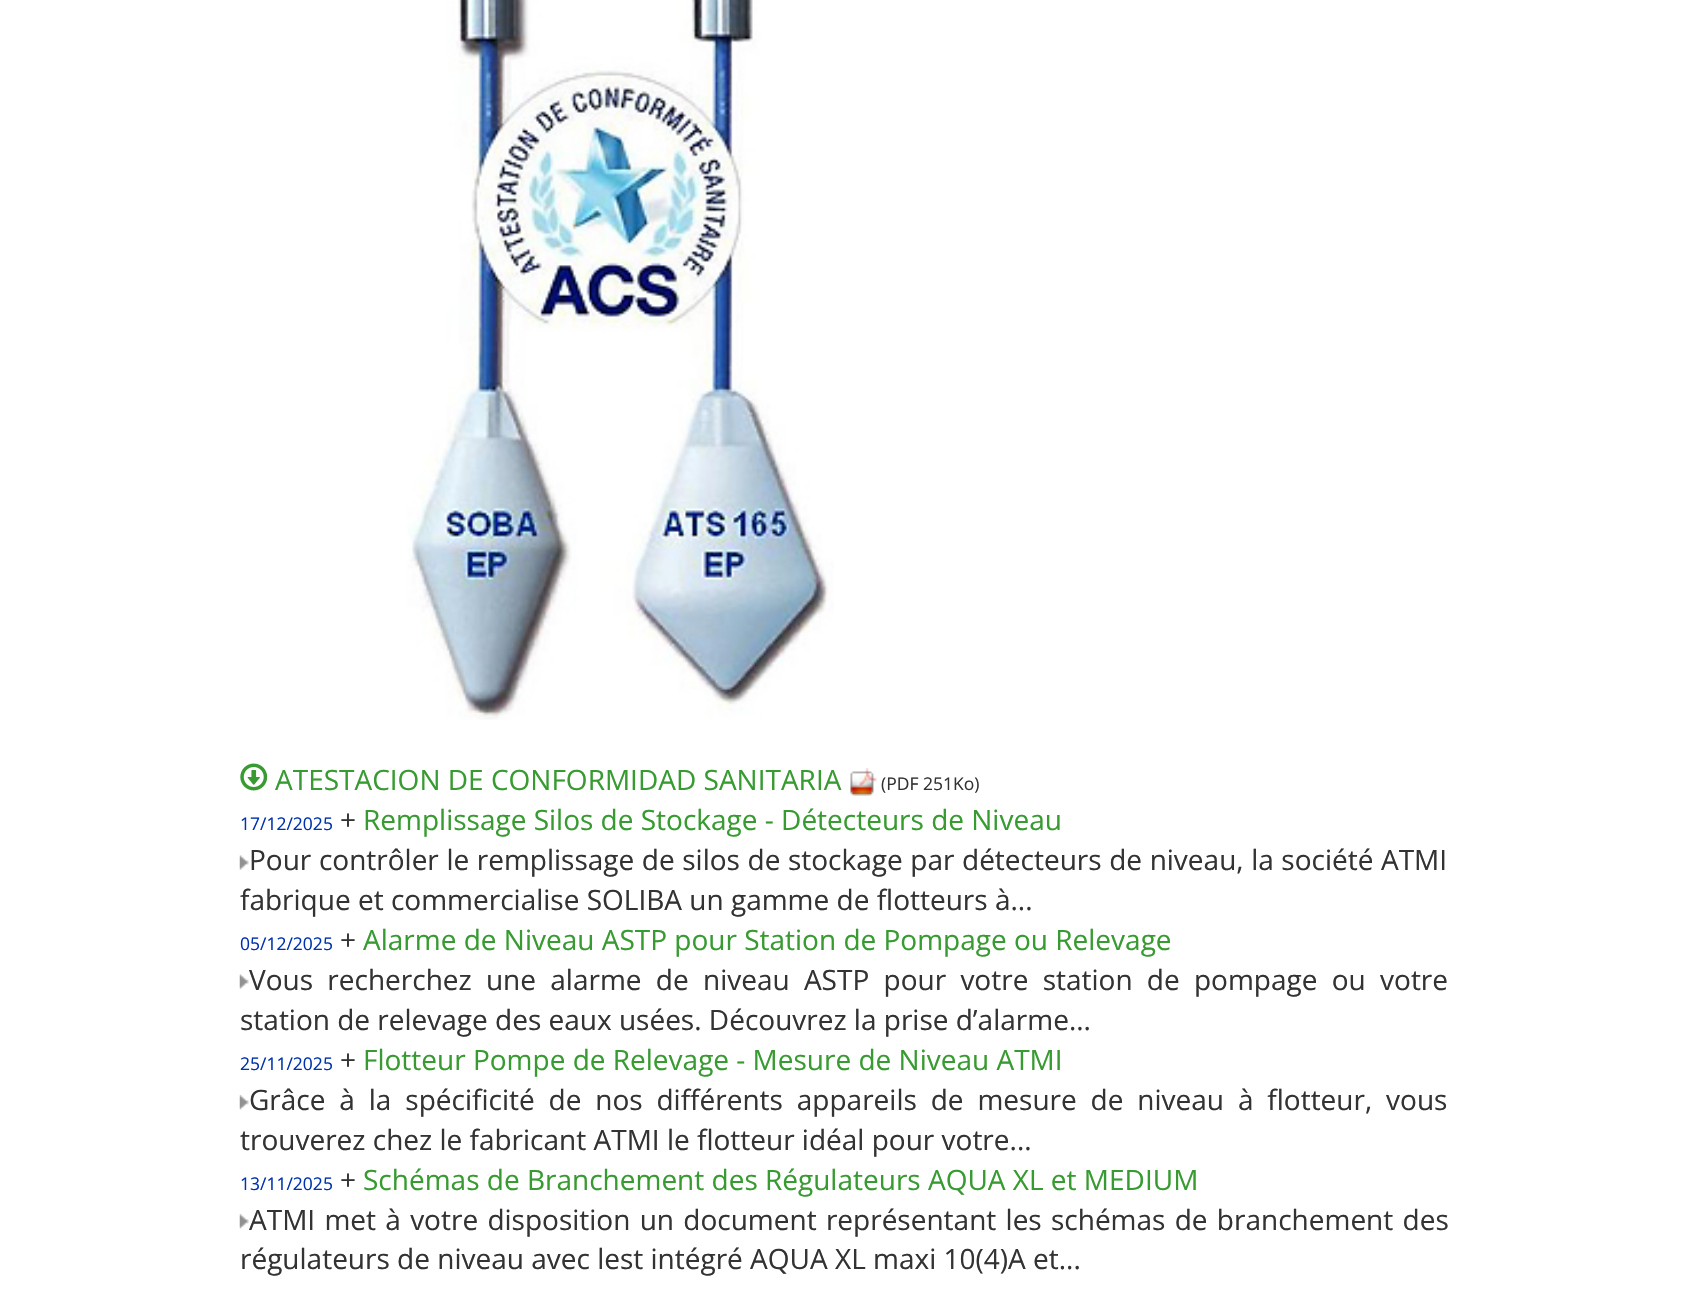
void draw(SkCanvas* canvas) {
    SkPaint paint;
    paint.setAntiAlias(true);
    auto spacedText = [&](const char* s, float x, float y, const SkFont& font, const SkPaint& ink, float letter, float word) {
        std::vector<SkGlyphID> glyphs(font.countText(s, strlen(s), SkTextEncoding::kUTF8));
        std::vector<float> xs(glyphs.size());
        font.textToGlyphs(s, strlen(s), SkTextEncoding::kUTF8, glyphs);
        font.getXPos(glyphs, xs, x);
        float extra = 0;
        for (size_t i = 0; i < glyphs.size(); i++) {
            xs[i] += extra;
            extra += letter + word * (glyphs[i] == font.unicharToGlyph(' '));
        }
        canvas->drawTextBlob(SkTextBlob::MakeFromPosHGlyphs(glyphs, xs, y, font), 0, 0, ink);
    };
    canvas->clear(0xFFFFFFFF);
    canvas->drawImageRect(SkImages::DeferredFromEncodedData(SkData::MakeFromFileName("img1.png")), SkRect::MakeXYWH(407, 0, 427, 720), SkSamplingOptions());
    canvas->drawImageRect(SkImages::DeferredFromEncodedData(SkData::MakeFromFileName("img2.png")), SkRect::MakeXYWH(240, 763, 28, 28), SkSamplingOptions());
    SkFont font1(fontMgr->matchFamilyStyle("Open Sans", SkFontStyle::Normal()), 28);
    font1.setSubpixel(true);
    paint.setColor(0xFF389B31);
    canvas->drawString("ATESTACION DE CONFORMIDAD SANITARIA", 275, 790, font1, paint);
    canvas->drawImageRect(SkImages::DeferredFromEncodedData(SkData::MakeFromFileName("img3.png")), SkRect::MakeXYWH(850, 768, 27, 28), SkSamplingOptions());
    SkFont font2(fontMgr->matchFamilyStyle("Open Sans", SkFontStyle::Normal()), 17.5f);
    font2.setSubpixel(true);
    paint.setColor(0xFF333333);
    canvas->drawString("(PDF 251Ko)", 881, 790, font2, paint);
    paint.setColor(0xFF0032AF);
    canvas->drawString("17/12/2025", 240, 830, font2, paint);
    paint.setColor(0xFF333333);
    canvas->drawString("+", 340, 830, font1, paint);
    paint.setColor(0xFF389B31);
    canvas->drawString("Remplissage Silos de Stockage - Détecteurs de Niveau", 363, 830, font1, paint);
    canvas->drawImageRect(SkImages::DeferredFromEncodedData(SkData::MakeFromFileName("img4.png")), SkRect::MakeXYWH(239, 855, 10, 15), SkSamplingOptions());
    paint.setColor(0xFF333333);
    spacedText("Pour contrôler le remplissage de silos de stockage par détecteurs de niveau, la société ATMI", 249, 870, font1, paint, 0, 0.3f);
    canvas->drawString("fabrique et commercialise SOLIBA un gamme de flotteurs à...", 240, 910, font1, paint);
    paint.setColor(0xFF0032AF);
    canvas->drawString("05/12/2025", 240, 950, font2, paint);
    paint.setColor(0xFF333333);
    canvas->drawString("+", 340, 950, font1, paint);
    paint.setColor(0xFF389B31);
    canvas->drawString("Alarme de Niveau ASTP pour Station de Pompage ou Relevage", 363, 950, font1, paint);
    canvas->drawImageRect(SkImages::DeferredFromEncodedData(SkData::MakeFromFileName("img4.png")), SkRect::MakeXYWH(239, 974, 10, 15), SkSamplingOptions());
    paint.setColor(0xFF333333);
    spacedText("Vous recherchez une alarme de niveau ASTP pour votre station de pompage ou votre", 249, 990, font1, paint, 0, 7);
    canvas->drawString("station de relevage des eaux usées. Découvrez la prise d’alarme...", 240, 1030, font1, paint);
    paint.setColor(0xFF0032AF);
    canvas->drawString("25/11/2025", 240, 1070, font2, paint);
    paint.setColor(0xFF333333);
    canvas->drawString("+", 340, 1070, font1, paint);
    paint.setColor(0xFF389B31);
    canvas->drawString("Flotteur Pompe de Relevage - Mesure de Niveau ATMI", 363, 1070, font1, paint);
    canvas->drawImageRect(SkImages::DeferredFromEncodedData(SkData::MakeFromFileName("img5.png")), SkRect::MakeXYWH(239, 1095, 10, 15), SkSamplingOptions());
    paint.setColor(0xFF333333);
    spacedText("Grâce à la spécificité de nos différents appareils de mesure de niveau à flotteur, vous", 249, 1110, font1, paint, 0, 6.6f);
    canvas->drawString("trouverez chez le fabricant ATMI le flotteur idéal pour votre...", 240, 1150, font1, paint);
    paint.setColor(0xFF0032AF);
    canvas->drawString("13/11/2025", 240, 1190, font2, paint);
    paint.setColor(0xFF333333);
    canvas->drawString("+", 340, 1190, font1, paint);
    paint.setColor(0xFF389B31);
    canvas->drawString("Schémas de Branchement des Régulateurs AQUA XL et MEDIUM", 363, 1190, font1, paint);
    canvas->drawImageRect(SkImages::DeferredFromEncodedData(SkData::MakeFromFileName("img5.png")), SkRect::MakeXYWH(239, 1214, 10, 15), SkSamplingOptions());
    paint.setColor(0xFF333333);
    spacedText("ATMI met à votre disposition un document représentant les schémas de branchement des", 249, 1230, font1, paint, 0, 2);
    canvas->drawString("régulateurs de niveau avec lest intégré AQUA XL maxi 10(4)A et...", 240, 1269, font1, paint);
}
